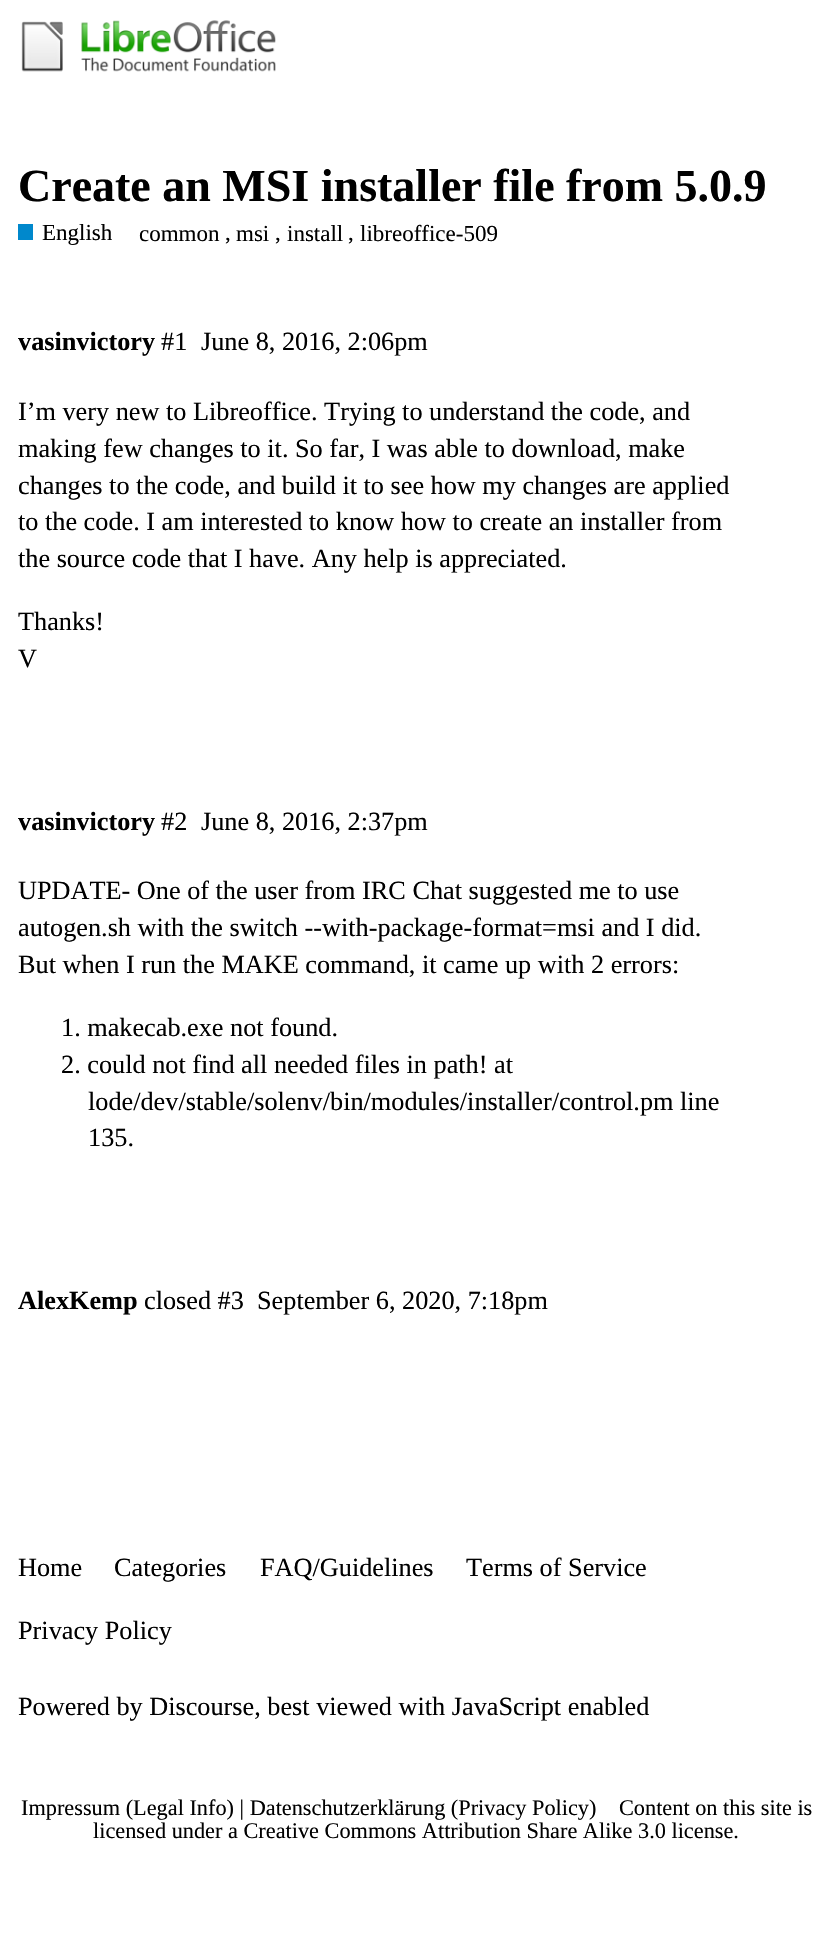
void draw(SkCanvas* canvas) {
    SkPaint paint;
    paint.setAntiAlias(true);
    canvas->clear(0xFFFFFFFF);
    canvas->drawImageRect(SkImages::DeferredFromEncodedData(SkData::MakeFromFileName("img1.png")), SkRect::MakeXYWH(21, 20, 255, 52), SkSamplingOptions());
    SkFont font1(fontMgr->matchFamilyStyle("Liberation Serif", SkFontStyle::Bold()), 46);
    font1.setSubpixel(true);
    paint.setColor(0xFF000000);
    canvas->drawString("Create an MSI installer file from 5.0.9", 18, 201, font1, paint);
    paint.setColor(0xFF0088CC);
    canvas->drawRect(SkRect::MakeXYWH(18, 224, 15, 16), paint);
    SkFont font2(fontMgr->matchFamilyStyle("Liberation Serif", SkFontStyle::Normal()), 23);
    font2.setSubpixel(true);
    paint.setColor(0xFF000000);
    canvas->drawString("English", 42, 240, font2, paint);
    canvas->drawString("common", 139, 241, font2, paint);
    canvas->drawString(",", 225, 240, font2, paint);
    canvas->drawString("msi", 236, 241, font2, paint);
    canvas->drawString(",", 275, 240, font2, paint);
    canvas->drawString("install", 287, 241, font2, paint);
    canvas->drawString(",", 348, 240, font2, paint);
    canvas->drawString("libreoffice-509", 360, 241, font2, paint);
    SkFont font3(fontMgr->matchFamilyStyle("Liberation Serif", SkFontStyle::Bold()), 26.25f);
    font3.setSubpixel(true);
    canvas->drawString("vasinvictory", 18, 350, font3, paint);
    SkFont font4(fontMgr->matchFamilyStyle("Liberation Serif", SkFontStyle::Normal()), 26.25f);
    font4.setSubpixel(true);
    canvas->drawString("#1", 161, 350, font4, paint);
    canvas->drawString("June 8, 2016, 2:06pm", 201, 350, font4, paint);
    canvas->drawString("I’m very new to Libreoffice. Trying to understand the code, and", 18, 420, font4, paint);
    canvas->drawString("making few changes to it. So far, I was able to download, make", 18, 457, font4, paint);
    canvas->drawString("changes to the code, and build it to see how my changes are applied", 18, 494, font4, paint);
    canvas->drawString("to the code. I am interested to know how to create an installer from", 18, 530, font4, paint);
    canvas->drawString("the source code that I have. Any help is appreciated.", 18, 567, font4, paint);
    canvas->drawString("Thanks!", 18, 630, font4, paint);
    canvas->drawString("V", 18, 667, font4, paint);
    canvas->drawString("vasinvictory", 18, 830, font3, paint);
    canvas->drawString("#2", 161, 830, font4, paint);
    canvas->drawString("June 8, 2016, 2:37pm", 201, 830, font4, paint);
    canvas->drawString("UPDATE- One of the user from IRC Chat suggested me to use", 18, 899, font4, paint);
    canvas->drawString("autogen.sh with the switch --with-package-format=msi and I did.", 18, 936, font4, paint);
    canvas->drawString("But when I run the MAKE command, it came up with 2 errors:", 18, 973, font4, paint);
    canvas->drawString("1. makecab.exe not found.", 61, 1036, font4, paint);
    canvas->drawString("2. could not find all needed files in path! at", 61, 1073, font4, paint);
    canvas->drawString("lode/dev/stable/solenv/bin/modules/installer/control.pm line", 88, 1110, font4, paint);
    canvas->drawString("135.", 88, 1146, font4, paint);
    canvas->drawString("AlexKemp", 18, 1309, font3, paint);
    canvas->drawString("closed #3", 144, 1309, font4, paint);
    canvas->drawString("September 6, 2020, 7:18pm", 257, 1309, font4, paint);
    canvas->drawString("Home", 18, 1576, font4, paint);
    canvas->drawString("Categories", 114, 1576, font4, paint);
    canvas->drawString("FAQ/Guidelines", 260, 1576, font4, paint);
    canvas->drawString("Terms of Service", 466, 1576, font4, paint);
    canvas->drawString("Privacy Policy", 18, 1639, font4, paint);
    canvas->drawString("Powered by Discourse, best viewed with JavaScript enabled", 18, 1715, font4, paint);
    SkFont font5(fontMgr->matchFamilyStyle("Liberation Serif", SkFontStyle::Normal()), 22.3f);
    font5.setSubpixel(true);
    canvas->drawString("Impressum (Legal Info) | Datenschutzerklärung (Privacy Policy)", 21, 1815, font5, paint);
    canvas->drawString("Content on this site is", 619, 1815, font5, paint);
    canvas->drawString("licensed under a Creative Commons Attribution Share Alike 3.0 license.", 93, 1838, font5, paint);
}
